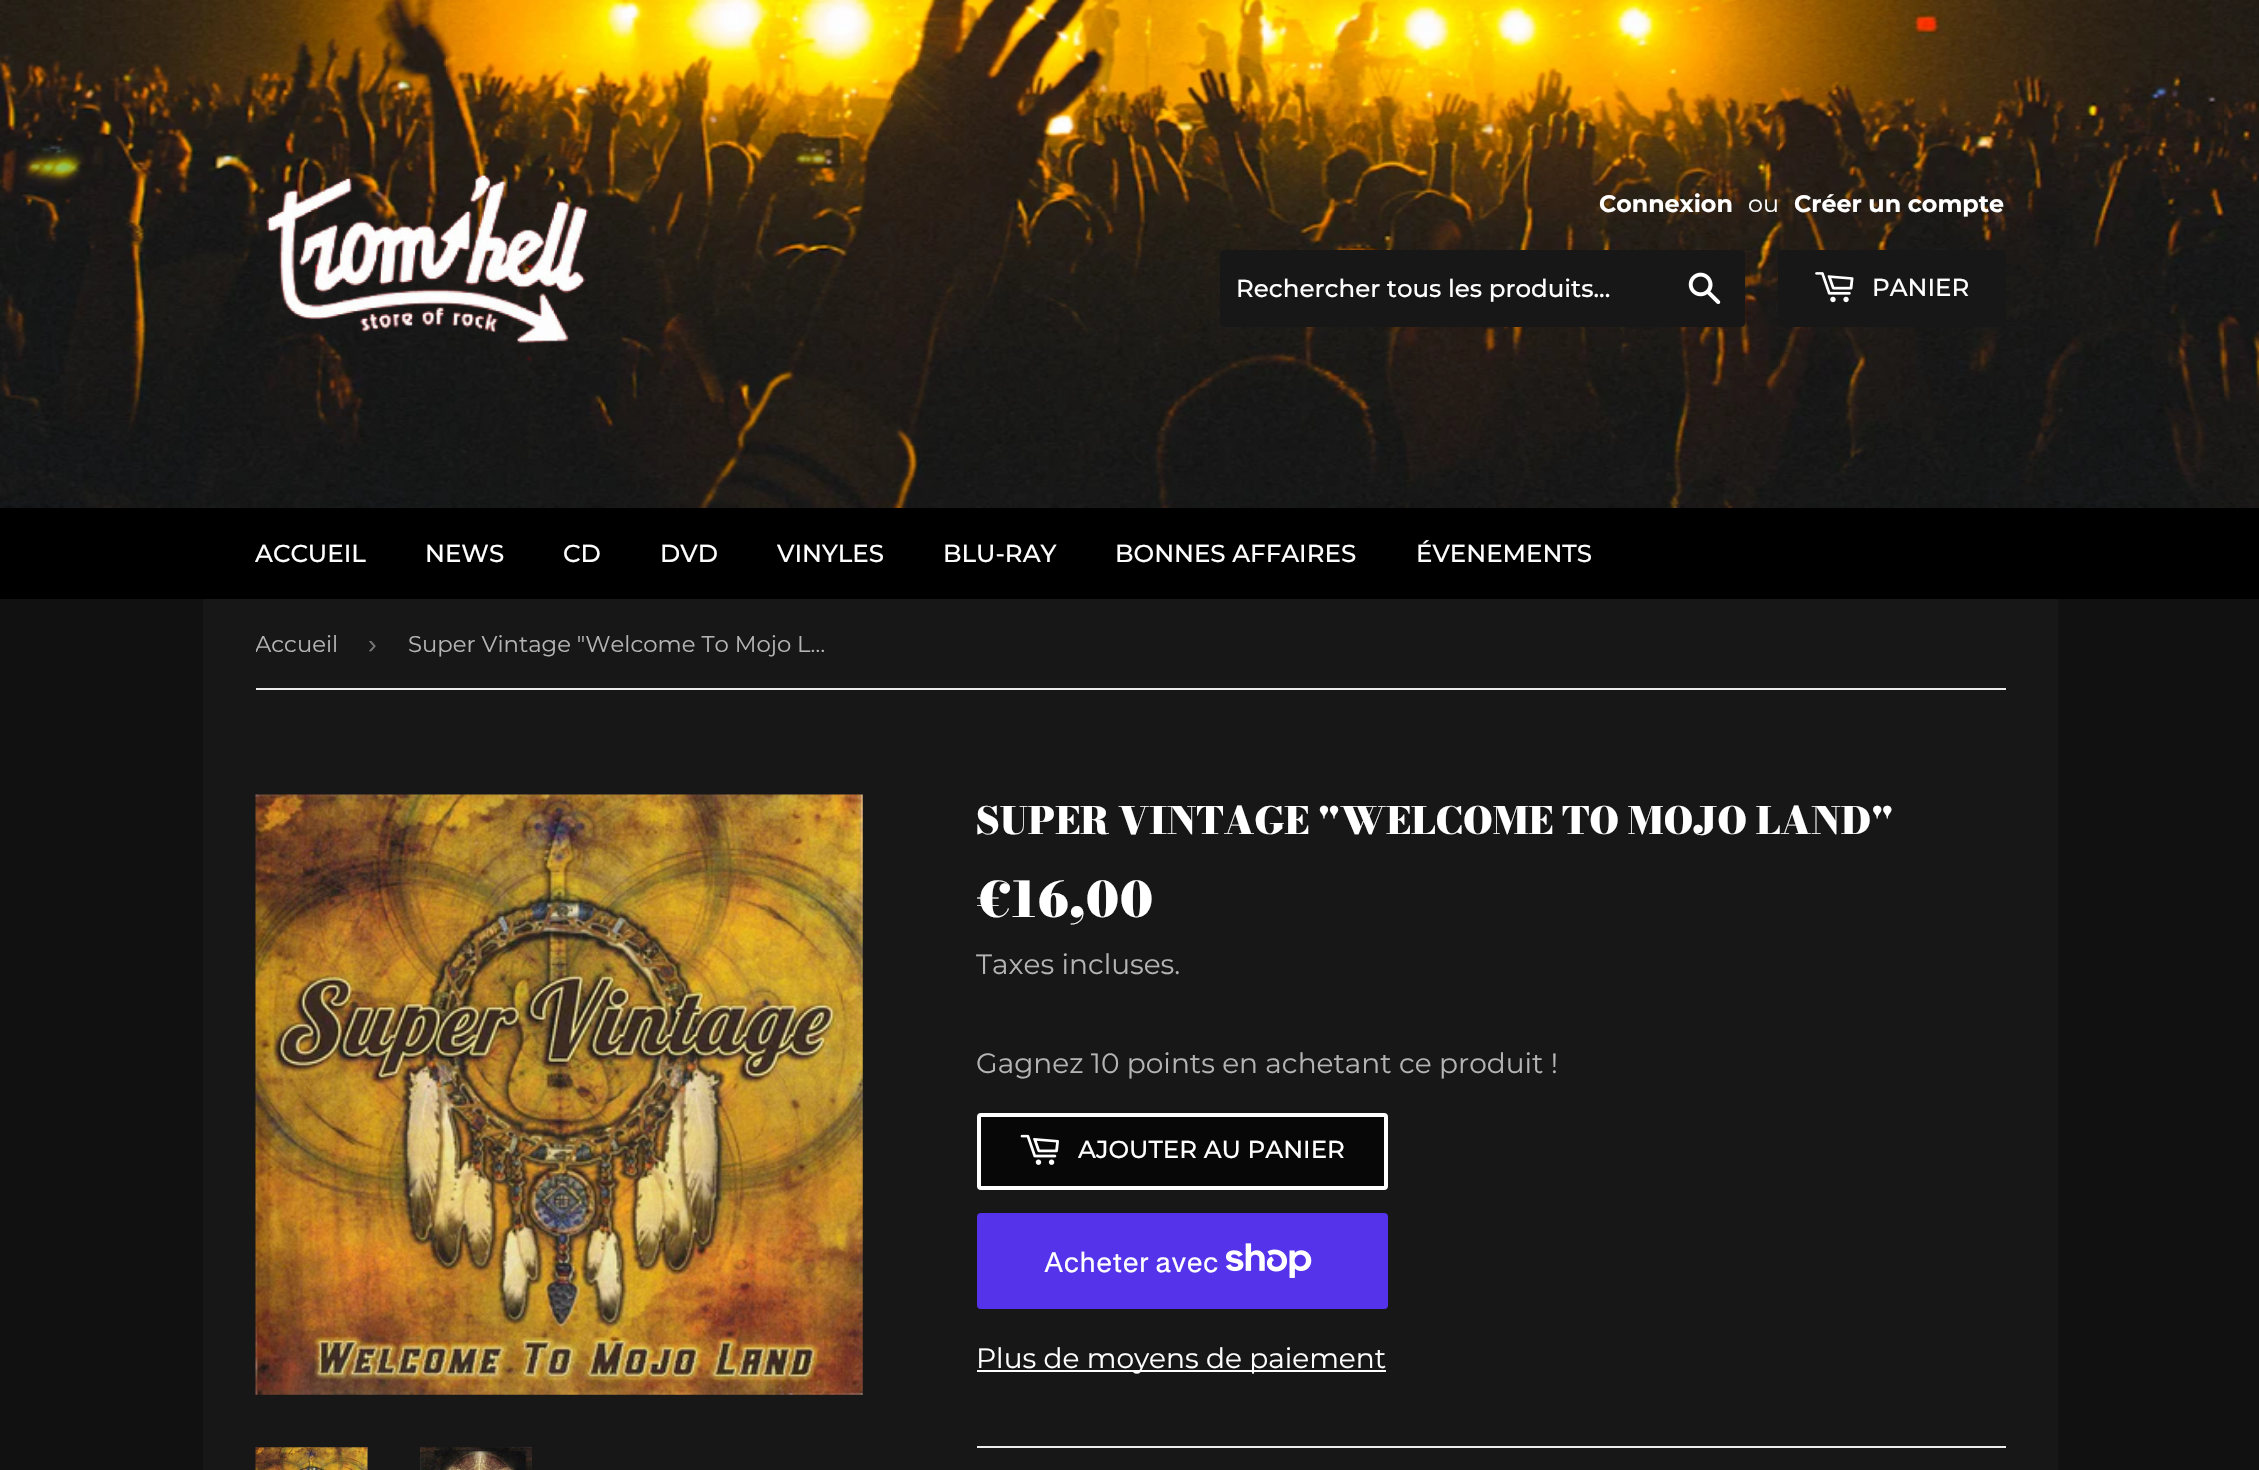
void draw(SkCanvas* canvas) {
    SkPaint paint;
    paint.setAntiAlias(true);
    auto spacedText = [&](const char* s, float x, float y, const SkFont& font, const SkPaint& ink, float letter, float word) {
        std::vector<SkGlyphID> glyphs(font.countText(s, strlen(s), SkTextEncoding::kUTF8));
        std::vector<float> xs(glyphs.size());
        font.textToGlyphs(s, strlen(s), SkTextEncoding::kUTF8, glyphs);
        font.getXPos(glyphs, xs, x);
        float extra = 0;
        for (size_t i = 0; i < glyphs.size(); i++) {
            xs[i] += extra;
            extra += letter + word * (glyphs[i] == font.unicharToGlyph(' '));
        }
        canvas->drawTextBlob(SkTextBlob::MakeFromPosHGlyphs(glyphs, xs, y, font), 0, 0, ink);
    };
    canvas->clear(0xFF111111);
    canvas->drawImageRect(SkImages::DeferredFromEncodedData(SkData::MakeFromFileName("img1.png")), SkRect::MakeXYWH(0, 0, 2259, 508), SkSamplingOptions());
    canvas->drawImageRect(SkImages::DeferredFromEncodedData(SkData::MakeFromFileName("img2.png")), SkRect::MakeXYWH(266, 175, 323, 187), SkSamplingOptions());
    SkFont font1(fontMgr->matchFamilyStyle("Montserrat", SkFontStyle::Bold()), 23.75f);
    font1.setSubpixel(true);
    paint.setColor(0xFFFFFFFF);
    canvas->drawString("Connexion", 1599, 212, font1, paint);
    SkFont font2(fontMgr->matchFamilyStyle("Montserrat", SkFontStyle::Normal()), 23.75f);
    font2.setSubpixel(true);
    canvas->drawString("ou", 1748, 212, font2, paint);
    canvas->drawString("Créer un compte", 1794, 212, font1, paint);
    paint.setColor(0xFF171717);
    canvas->drawRoundRect(SkRect::MakeXYWH(1220, 250, 525, 77), 4, 4, paint);
    SkFont font3(fontMgr->matchFamilyStyle("Montserrat", SkFontStyle(500, SkFontStyle::kNormal_Width, SkFontStyle::kUpright_Slant)), 24.5f);
    font3.setSubpixel(true);
    paint.setColor(0xFFFFFFFF);
    canvas->drawString("Rechercher tous les produits...", 1236, 297, font3, paint);
    canvas->drawImageRect(SkImages::DeferredFromEncodedData(SkData::MakeFromFileName("img3.png")), SkRect::MakeXYWH(1688, 272, 33, 32), SkSamplingOptions());
    paint.setColor(0xFF171717);
    canvas->drawRoundRect(SkRect::MakeXYWH(1778, 250, 228, 77), 4, 4, paint);
    canvas->drawImageRect(SkImages::DeferredFromEncodedData(SkData::MakeFromFileName("img4.png")), SkRect::MakeXYWH(1815, 272, 39, 31), SkSamplingOptions());
    paint.setColor(0xFFFFFFFF);
    canvas->drawString("PANIER", 1872, 296, font3, paint);
    paint.setColor(0xFF000000);
    canvas->drawRect(SkRect::MakeXYWH(0, 508, 2259, 91), paint);
    paint.setColor(0xFFFFFFFF);
    canvas->drawString("ACCUEIL", 255, 562, font3, paint);
    canvas->drawString("NEWS", 425, 562, font3, paint);
    canvas->drawString("CD", 563, 562, font3, paint);
    canvas->drawString("DVD", 660, 562, font3, paint);
    canvas->drawString("VINYLES", 777, 562, font3, paint);
    canvas->drawString("BLU-RAY", 943, 562, font3, paint);
    canvas->drawString("BONNES AFFAIRES", 1115, 562, font3, paint);
    canvas->drawString("ÉVENEMENTS", 1416, 562, font3, paint);
    paint.setColor(0xFF171717);
    canvas->drawRect(SkRect::MakeXYWH(203, 599, 1855, 871), paint);
    paint.setColor(0xFFECECEC);
    canvas->drawRect(SkRect::MakeXYWH(256, 688, 1750, 2), paint);
    canvas->save();
    canvas->clipRect(SkRect::MakeXYWH(256, 599, 94, 89));
    SkFont font4(fontMgr->matchFamilyStyle("Montserrat", SkFontStyle::Normal()), 22.75f);
    font4.setSubpixel(true);
    paint.setColor(0xFFB4B4B4);
    canvas->drawString("Accueil", 255, 652, font4, paint);
    canvas->restore();
    SkFont font5(fontMgr->matchFamilyStyle("Liberation Sans", SkFontStyle::Normal()), 26);
    font5.setSubpixel(true);
    paint.setColor(0xFF767676);
    canvas->drawString("›", 368, 653, font5, paint);
    paint.setColor(0xFFB4B4B4);
    canvas->drawString("Super Vintage \"Welcome To Mojo L…", 408, 652, font4, paint);
    canvas->drawImageRect(SkImages::DeferredFromEncodedData(SkData::MakeFromFileName("img5.png")), SkRect::MakeXYWH(255, 794, 608, 601), SkSamplingOptions());
    canvas->drawImageRect(SkImages::DeferredFromEncodedData(SkData::MakeFromFileName("img6.png")), SkRect::MakeXYWH(255, 1447, 113, 23), SkSamplingOptions());
    canvas->drawImageRect(SkImages::DeferredFromEncodedData(SkData::MakeFromFileName("img7.png")), SkRect::MakeXYWH(420, 1447, 112, 23), SkSamplingOptions());
    SkFont font6(fontMgr->matchFamilyStyle("Bodoni Moda", SkFontStyle(900, SkFontStyle::kNormal_Width, SkFontStyle::kUpright_Slant)), 37.3f);
    font6.setSubpixel(true);
    paint.setColor(0xFFFFFFFF);
    spacedText("SUPER VINTAGE \"WELCOME TO MOJO LAND\"", 976, 834, font6, paint, 0, -0.5f);
    SkFont font7(fontMgr->matchFamilyStyle("Bodoni Moda", SkFontStyle(900, SkFontStyle::kNormal_Width, SkFontStyle::kUpright_Slant)), 48.5f);
    font7.setSubpixel(true);
    canvas->drawString("€16,00", 976, 917, font7, paint);
    SkFont font8(fontMgr->matchFamilyStyle("Montserrat", SkFontStyle::Normal()), 28);
    font8.setSubpixel(true);
    paint.setColor(0xFFB4B4B4);
    canvas->drawString("Taxes incluses.", 976, 974, font8, paint);
    canvas->drawString("Gagnez 10 points en achetant ce produit !", 976, 1073, font8, paint);
    paint.setColor(0xFF070707);
    canvas->drawRoundRect(SkRect::MakeXYWH(979, 1115, 407, 73), 2, 2, paint);
    paint.setStyle(SkPaint::kStroke_Style);
    paint.setStrokeWidth(4);
    paint.setColor(0xFFFFFFFF);
    canvas->drawRoundRect(SkRect::MakeXYWH(979, 1115, 407, 73), 2, 2, paint);
    canvas->drawImageRect(SkImages::DeferredFromEncodedData(SkData::MakeFromFileName("img8.png")), SkRect::MakeXYWH(1020, 1134, 39, 31), SkSamplingOptions());
    paint.setStyle(SkPaint::kFill_Style);
    canvas->drawString("AJOUTER AU PANIER", 1078, 1158, font3, paint);
    paint.setColor(0xFF5433EB);
    canvas->drawRoundRect(SkRect::MakeXYWH(977, 1213, 411, 96), 4, 4, paint);
    SkFont font9(fontMgr->matchFamilyStyle("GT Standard", SkFontStyle::Normal()), 28);
    font9.setSubpixel(true);
    paint.setColor(0xFFFFFFFF);
    canvas->drawString("Acheter avec", 1044, 1272, font9, paint);
    canvas->drawImageRect(SkImages::DeferredFromEncodedData(SkData::MakeFromFileName("img9.png")), SkRect::MakeXYWH(1226, 1243, 86, 35), SkSamplingOptions());
    canvas->drawRect(SkRect::MakeXYWH(977, 1370, 409, 2), paint);
    canvas->drawString("Plus de moyens de paiement", 976, 1368, font8, paint);
    paint.setColor(0xFFECECEC);
    canvas->drawRect(SkRect::MakeXYWH(977, 1446, 1029, 2), paint);
}
